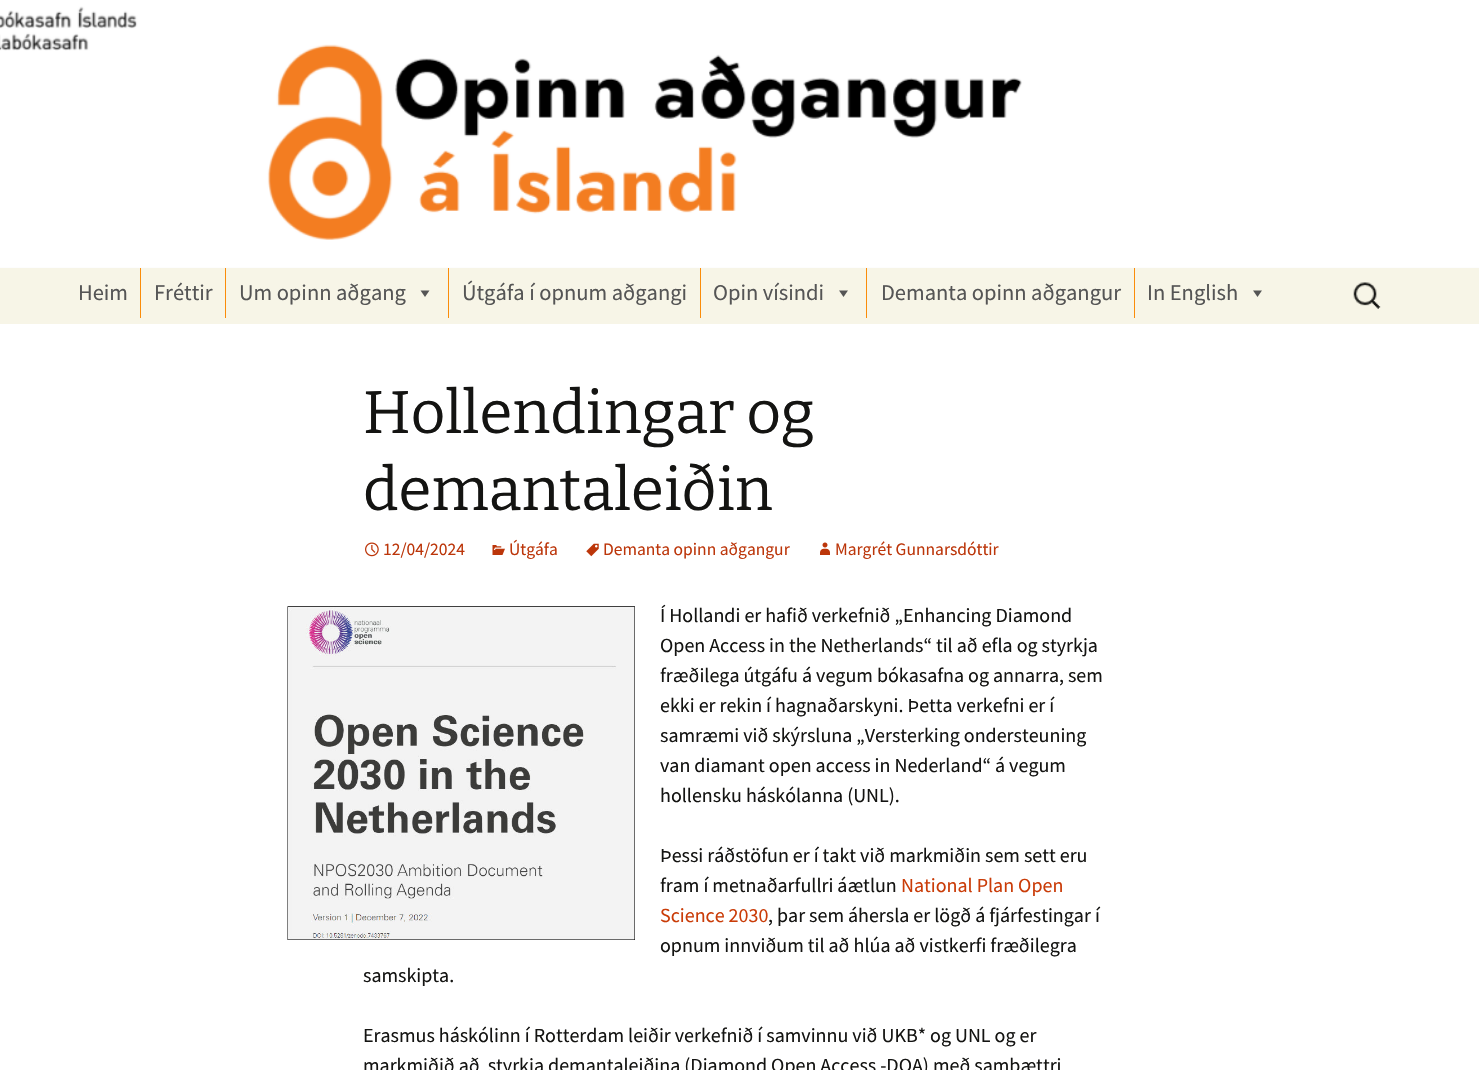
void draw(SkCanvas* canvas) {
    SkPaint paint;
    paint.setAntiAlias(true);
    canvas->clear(0xFFFFFFFF);
    canvas->drawImageRect(SkImages::DeferredFromEncodedData(SkData::MakeFromFileName("img1.png")), SkRect::MakeXYWH(0, 6, 1479, 262), SkSamplingOptions());
    paint.setColor(0xFFF7F5E7);
    canvas->drawRect(SkRect::MakeXYWH(0, 268, 1479, 56), paint);
    SkFont font1(fontMgr->matchFamilyStyle("Source Sans Pro", SkFontStyle::Normal()), 22.5f);
    font1.setSubpixel(true);
    paint.setColor(0xFF555555);
    canvas->drawString("Heim", 78, 300, font1, paint);
    paint.setColor(0xFFFA8C0A);
    canvas->drawRect(SkRect::MakeXYWH(140, 268, 1, 50), paint);
    paint.setColor(0xFF555555);
    canvas->drawString("Fréttir", 154, 300, font1, paint);
    paint.setColor(0xFFFA8C0A);
    canvas->drawRect(SkRect::MakeXYWH(225, 268, 1, 50), paint);
    paint.setColor(0xFF555555);
    canvas->drawString("Um opinn aðgang", 239, 300, font1, paint);
    canvas->drawPath(SkPathBuilder().moveTo(429.5f, 290.5f).lineTo(425, 297).lineTo(420.5f, 290.5f).close().detach(), paint);
    paint.setColor(0xFFFA8C0A);
    canvas->drawRect(SkRect::MakeXYWH(448, 268, 1, 50), paint);
    paint.setColor(0xFF555555);
    canvas->drawString("Útgáfa í opnum aðgangi", 462, 300, font1, paint);
    paint.setColor(0xFFFA8C0A);
    canvas->drawRect(SkRect::MakeXYWH(700, 268, 1, 50), paint);
    paint.setColor(0xFF555555);
    canvas->drawString("Opin vísindi", 713, 300, font1, paint);
    canvas->drawPath(SkPathBuilder().moveTo(848, 290.5f).lineTo(843.5f, 297).lineTo(839, 290.5f).close().detach(), paint);
    paint.setColor(0xFFFA8C0A);
    canvas->drawRect(SkRect::MakeXYWH(866, 268, 1, 50), paint);
    paint.setColor(0xFF555555);
    canvas->drawString("Demanta opinn aðgangur", 881, 300, font1, paint);
    paint.setColor(0xFFFA8C0A);
    canvas->drawRect(SkRect::MakeXYWH(1134, 268, 1, 50), paint);
    paint.setColor(0xFF555555);
    canvas->drawString("In English", 1147, 300, font1, paint);
    canvas->drawPath(SkPathBuilder().moveTo(1262, 290.5f).lineTo(1257.5f, 297).lineTo(1253, 290.5f).close().detach(), paint);
    canvas->drawImageRect(SkImages::DeferredFromEncodedData(SkData::MakeFromFileName("img2.png")), SkRect::MakeXYWH(1353, 282, 28, 27), SkSamplingOptions());
    SkFont font2(fontMgr->matchFamilyStyle("Bitter", SkFontStyle(100, SkFontStyle::kNormal_Width, SkFontStyle::kUpright_Slant)), 60);
    font2.setSubpixel(true);
    paint.setColor(0xFF141412);
    canvas->drawString("Hollendingar og", 363, 433, font2, paint);
    canvas->drawString("demantaleiðin", 363, 510, font2, paint);
    canvas->drawImageRect(SkImages::DeferredFromEncodedData(SkData::MakeFromFileName("img3.png")), SkRect::MakeXYWH(365, 542, 14, 15), SkSamplingOptions());
    SkFont font3(fontMgr->matchFamilyStyle("Source Sans Pro", SkFontStyle::Normal()), 17.5f);
    font3.setSubpixel(true);
    paint.setColor(0xFFBC360A);
    canvas->drawString("12/04/2024", 383, 555, font3, paint);
    canvas->drawImageRect(SkImages::DeferredFromEncodedData(SkData::MakeFromFileName("img4.png")), SkRect::MakeXYWH(492, 545, 13, 10), SkSamplingOptions());
    canvas->drawString("Útgáfa", 509, 555, font3, paint);
    canvas->drawImageRect(SkImages::DeferredFromEncodedData(SkData::MakeFromFileName("img5.png")), SkRect::MakeXYWH(586, 543, 13, 14), SkSamplingOptions());
    canvas->drawString("Demanta opinn aðgangur", 603, 555, font3, paint);
    canvas->drawImageRect(SkImages::DeferredFromEncodedData(SkData::MakeFromFileName("img6.png")), SkRect::MakeXYWH(820, 542, 10, 13), SkSamplingOptions());
    canvas->drawString("Margrét Gunnarsdóttir", 835, 555, font3, paint);
    canvas->drawImageRect(SkImages::DeferredFromEncodedData(SkData::MakeFromFileName("img7.png")), SkRect::MakeXYWH(287, 606, 348, 334), SkSamplingOptions());
    SkFont font4(fontMgr->matchFamilyStyle("Source Sans Pro", SkFontStyle::Normal()), 20);
    font4.setSubpixel(true);
    paint.setColor(0xFF141412);
    canvas->drawString("Í Hollandi er hafið verkefnið „Enhancing Diamond", 660, 622, font4, paint);
    canvas->drawString("Open Access in the Netherlands“ til að efla og styrkja", 660, 652, font4, paint);
    canvas->drawString("fræðilega útgáfu á vegum bókasafna og annarra, sem", 660, 682, font4, paint);
    canvas->drawString("ekki er rekin í hagnaðarskyni. Þetta verkefni er í", 660, 712, font4, paint);
    canvas->drawString("samræmi við skýrsluna „Versterking ondersteuning", 660, 742, font4, paint);
    canvas->drawString("van diamant open access in Nederland“ á vegum", 660, 772, font4, paint);
    canvas->drawString("hollensku háskólanna (UNL).", 660, 802, font4, paint);
    canvas->drawString("Þessi ráðstöfun er í takt við markmiðin sem sett eru", 660, 862, font4, paint);
    canvas->drawString("fram í metnaðarfullri áætlun", 660, 892, font4, paint);
    paint.setColor(0xFFCA3C08);
    canvas->drawString("National Plan Open", 901, 892, font4, paint);
    canvas->drawString("Science 2030", 660, 922, font4, paint);
    paint.setColor(0xFF141412);
    canvas->drawString(", þar sem áhersla er lögð á fjárfestingar í", 768, 922, font4, paint);
    canvas->drawString("opnum innviðum til að hlúa að vistkerfi fræðilegra", 660, 952, font4, paint);
    canvas->drawString("samskipta.", 363, 982, font4, paint);
    canvas->drawString("Erasmus háskólinn í Rotterdam leiðir verkefnið í samvinnu við UKB* og UNL og er", 363, 1042, font4, paint);
    canvas->drawString("markmiðið að  styrkja demantaleiðina (Diamond Open Access -DOA) með samþættri", 363, 1072, font4, paint);
}
